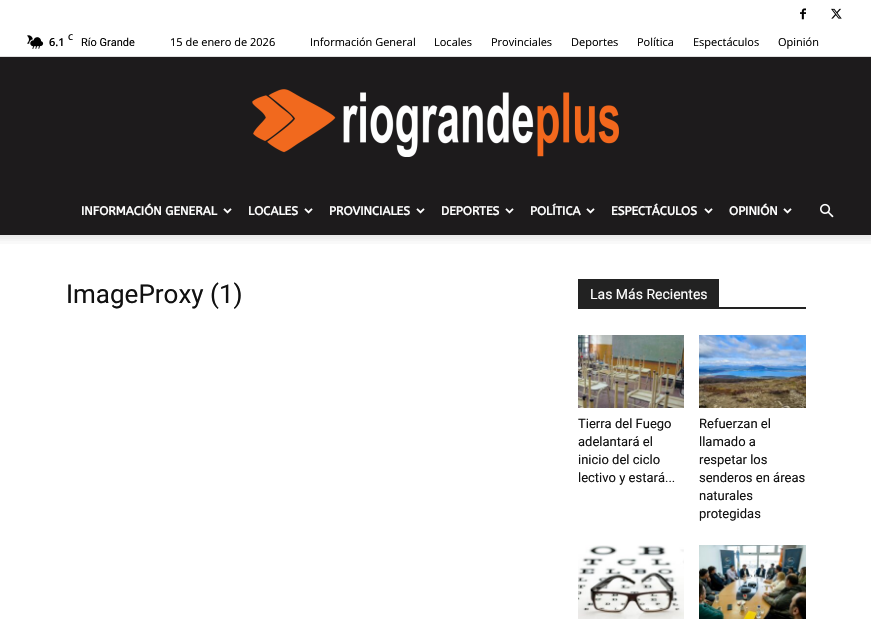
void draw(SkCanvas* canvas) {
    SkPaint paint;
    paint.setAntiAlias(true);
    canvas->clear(0xFFFFFFFF);
    paint.setColor(0xFFE0E0E0);
    canvas->drawRect(SkRect::MakeXYWH(0, 56, 871, 1), paint);
    canvas->drawImageRect(SkImages::DeferredFromEncodedData(SkData::MakeFromFileName("img1.png")), SkRect::MakeXYWH(800, 8, 6, 12), SkSamplingOptions());
    canvas->drawImageRect(SkImages::DeferredFromEncodedData(SkData::MakeFromFileName("img2.png")), SkRect::MakeXYWH(831, 8, 11, 11), SkSamplingOptions());
    canvas->drawImageRect(SkImages::DeferredFromEncodedData(SkData::MakeFromFileName("img3.png")), SkRect::MakeXYWH(27, 35, 17, 14), SkSamplingOptions());
    SkFont font1(fontMgr->matchFamilyStyle("Open Sans", SkFontStyle(600, SkFontStyle::kNormal_Width, SkFontStyle::kUpright_Slant)), 11);
    font1.setSubpixel(true);
    paint.setColor(0xFF000000);
    canvas->drawString("6.1", 49, 46, font1, paint);
    SkFont font2(fontMgr->matchFamilyStyle("Open Sans", SkFontStyle(600, SkFontStyle::kNormal_Width, SkFontStyle::kUpright_Slant)), 8);
    font2.setSubpixel(true);
    canvas->drawString("C", 68, 40, font2, paint);
    SkFont font3(fontMgr->matchFamilyStyle("Roboto", SkFontStyle::Normal()), 11);
    font3.setSubpixel(true);
    canvas->drawString("Río Grande", 81, 46, font3, paint);
    SkFont font4(fontMgr->matchFamilyStyle("Open Sans", SkFontStyle::Normal()), 11);
    font4.setSubpixel(true);
    canvas->drawString("15 de enero de 2026", 170, 46, font4, paint);
    canvas->drawString("Información General", 310, 46, font4, paint);
    canvas->drawString("Locales", 434, 46, font4, paint);
    canvas->drawString("Provinciales", 491, 46, font4, paint);
    canvas->drawString("Deportes", 571, 46, font4, paint);
    canvas->drawString("Política", 637, 46, font4, paint);
    canvas->drawString("Espectáculos", 693, 46, font4, paint);
    canvas->drawString("Opinión", 778, 46, font4, paint);
    paint.setColor(0xFF1D1B1C);
    canvas->drawRect(SkRect::MakeXYWH(0, 57, 871, 178), paint);
    canvas->drawImageRect(SkImages::DeferredFromEncodedData(SkData::MakeFromFileName("img4.png")), SkRect::MakeXYWH(252, 89, 367, 68), SkSamplingOptions());
    SkFont font5(fontMgr->matchFamilyStyle("ABeeZee", SkFontStyle::Bold()), 12);
    font5.setSubpixel(true);
    paint.setColor(0xFFFFFFFF);
    canvas->drawString("INFORMACIÓN GENERAL", 81, 215, font5, paint);
    canvas->drawImageRect(SkImages::DeferredFromEncodedData(SkData::MakeFromFileName("img5.png")), SkRect::MakeXYWH(223, 208, 9, 6), SkSamplingOptions());
    canvas->drawString("LOCALES", 248, 215, font5, paint);
    canvas->drawImageRect(SkImages::DeferredFromEncodedData(SkData::MakeFromFileName("img5.png")), SkRect::MakeXYWH(304, 208, 9, 6), SkSamplingOptions());
    canvas->drawString("PROVINCIALES", 329, 215, font5, paint);
    canvas->drawImageRect(SkImages::DeferredFromEncodedData(SkData::MakeFromFileName("img5.png")), SkRect::MakeXYWH(416, 208, 9, 6), SkSamplingOptions());
    canvas->drawString("DEPORTES", 441, 215, font5, paint);
    canvas->drawImageRect(SkImages::DeferredFromEncodedData(SkData::MakeFromFileName("img5.png")), SkRect::MakeXYWH(505, 208, 9, 6), SkSamplingOptions());
    canvas->drawString("POLÍTICA", 530, 215, font5, paint);
    canvas->drawImageRect(SkImages::DeferredFromEncodedData(SkData::MakeFromFileName("img5.png")), SkRect::MakeXYWH(586, 208, 9, 6), SkSamplingOptions());
    canvas->drawString("ESPECTÁCULOS", 611, 215, font5, paint);
    canvas->drawImageRect(SkImages::DeferredFromEncodedData(SkData::MakeFromFileName("img5.png")), SkRect::MakeXYWH(704, 208, 9, 6), SkSamplingOptions());
    canvas->drawString("OPINIÓN", 729, 215, font5, paint);
    canvas->drawImageRect(SkImages::DeferredFromEncodedData(SkData::MakeFromFileName("img5.png")), SkRect::MakeXYWH(783, 208, 9, 6), SkSamplingOptions());
    canvas->drawImageRect(SkImages::DeferredFromEncodedData(SkData::MakeFromFileName("img6.png")), SkRect::MakeXYWH(820, 203, 14, 15), SkSamplingOptions());
    canvas->drawImageRect(SkImages::DeferredFromEncodedData(SkData::MakeFromFileName("img7.png")), SkRect::MakeXYWH(0, 235, 871, 9), SkSamplingOptions());
    SkFont font6(fontMgr->matchFamilyStyle("Roboto", SkFontStyle::Normal()), 26);
    font6.setSubpixel(true);
    paint.setColor(0xFF111111);
    canvas->drawString("ImageProxy (1)", 66, 303, font6, paint);
    paint.setColor(0xFF222222);
    canvas->drawRect(SkRect::MakeXYWH(578, 307, 228, 2), paint);
    canvas->drawRect(SkRect::MakeXYWH(578, 279, 141, 28), paint);
    SkFont font7(fontMgr->matchFamilyStyle("Roboto", SkFontStyle::Normal()), 14);
    font7.setSubpixel(true);
    paint.setColor(0xFFFFFFFF);
    canvas->drawString("Las Más Recientes", 590, 299, font7, paint);
    canvas->drawImageRect(SkImages::DeferredFromEncodedData(SkData::MakeFromFileName("img8.png")), SkRect::MakeXYWH(578, 335, 106, 73), SkSamplingOptions());
    SkFont font8(fontMgr->matchFamilyStyle("Roboto", SkFontStyle::Normal()), 13);
    font8.setSubpixel(true);
    paint.setColor(0xFF111111);
    canvas->drawString("Tierra del Fuego", 578, 428, font8, paint);
    canvas->drawString("adelantará el", 578, 446, font8, paint);
    canvas->drawString("inicio del ciclo", 578, 464, font8, paint);
    canvas->drawString("lectivo y estará...", 578, 482, font8, paint);
    canvas->drawImageRect(SkImages::DeferredFromEncodedData(SkData::MakeFromFileName("img9.png")), SkRect::MakeXYWH(699, 335, 107, 73), SkSamplingOptions());
    canvas->drawString("Refuerzan el", 699, 428, font8, paint);
    canvas->drawString("llamado a", 699, 446, font8, paint);
    canvas->drawString("respetar los", 699, 464, font8, paint);
    canvas->drawString("senderos en áreas", 699, 482, font8, paint);
    canvas->drawString("naturales", 699, 500, font8, paint);
    canvas->drawString("protegidas", 699, 518, font8, paint);
    canvas->drawImageRect(SkImages::DeferredFromEncodedData(SkData::MakeFromFileName("img10.png")), SkRect::MakeXYWH(578, 545, 106, 74), SkSamplingOptions());
    canvas->drawImageRect(SkImages::DeferredFromEncodedData(SkData::MakeFromFileName("img11.png")), SkRect::MakeXYWH(699, 545, 107, 74), SkSamplingOptions());
}
